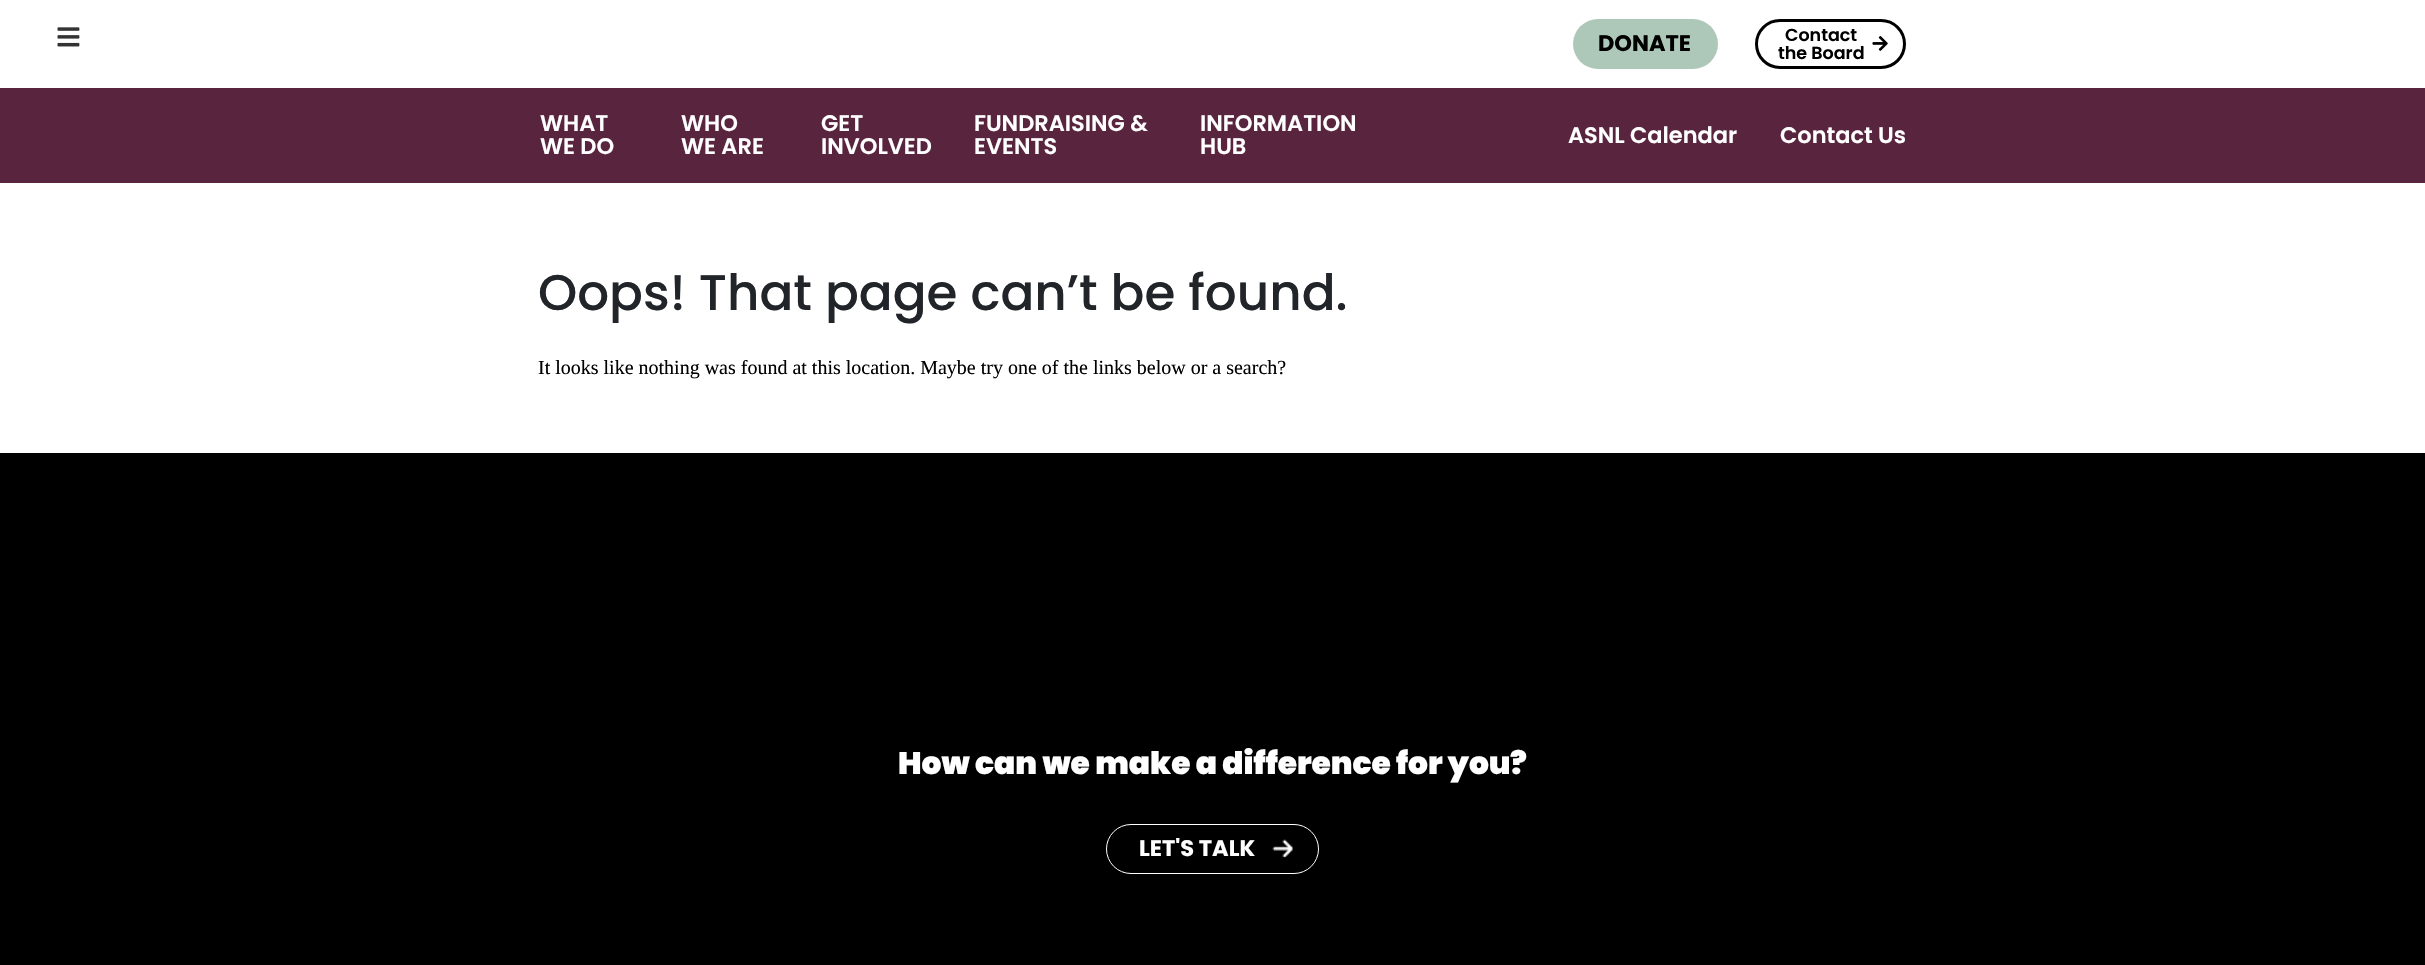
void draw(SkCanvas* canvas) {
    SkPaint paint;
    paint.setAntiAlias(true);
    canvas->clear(0xFFFFFFFF);
    canvas->drawImageRect(SkImages::DeferredFromEncodedData(SkData::MakeFromFileName("img1.png")), SkRect::MakeXYWH(57, 27, 23, 20), SkSamplingOptions());
    paint.setColor(0xFFADC8B8);
    canvas->drawRoundRect(SkRect::MakeXYWH(1573, 19, 145, 50), 25, 25, paint);
    SkFont font1(fontMgr->matchFamilyStyle("Poppins", SkFontStyle::Bold()), 22.5f);
    font1.setSubpixel(true);
    paint.setColor(0xFF000000);
    canvas->drawString("DONATE", 1598, 51, font1, paint);
    paint.setStyle(SkPaint::kStroke_Style);
    paint.setStrokeWidth(3);
    canvas->drawRoundRect(SkRect::MakeXYWH(1756.5f, 20.5f, 148, 47), 23.5f, 23.5f, paint);
    SkFont font2(fontMgr->matchFamilyStyle("Poppins", SkFontStyle(600, SkFontStyle::kNormal_Width, SkFontStyle::kUpright_Slant)), 17.5f);
    font2.setSubpixel(true);
    paint.setStyle(SkPaint::kFill_Style);
    canvas->drawString("Contact", 1785, 41, font2, paint);
    canvas->drawString("the Board", 1778, 59, font2, paint);
    canvas->drawImageRect(SkImages::DeferredFromEncodedData(SkData::MakeFromFileName("img2.png")), SkRect::MakeXYWH(1872, 36, 16, 15), SkSamplingOptions());
    paint.setColor(0xFF58243E);
    canvas->drawRect(SkRect::MakeXYWH(0, 88, 2425, 95), paint);
    SkFont font3(fontMgr->matchFamilyStyle("Poppins", SkFontStyle(600, SkFontStyle::kNormal_Width, SkFontStyle::kUpright_Slant)), 22.5f);
    font3.setSubpixel(true);
    paint.setColor(0xFFFFFFFF);
    canvas->drawString("WHAT", 540, 131, font3, paint);
    canvas->drawString("WE DO", 540, 154, font3, paint);
    canvas->drawString("WHO", 681, 131, font3, paint);
    canvas->drawString("WE ARE", 681, 154, font3, paint);
    canvas->drawString("GET", 821, 131, font3, paint);
    canvas->drawString("INVOLVED", 821, 154, font3, paint);
    canvas->drawString("FUNDRAISING &", 974, 131, font3, paint);
    canvas->drawString("EVENTS", 974, 154, font3, paint);
    canvas->drawString("INFORMATION", 1200, 131, font3, paint);
    canvas->drawString("HUB", 1200, 154, font3, paint);
    canvas->drawString("ASNL Calendar", 1568, 143, font3, paint);
    canvas->drawString("Contact Us", 1780, 143, font3, paint);
    SkFont font4(fontMgr->matchFamilyStyle("Poppins", SkFontStyle(500, SkFontStyle::kNormal_Width, SkFontStyle::kUpright_Slant)), 50);
    font4.setSubpixel(true);
    paint.setColor(0xFF212529);
    canvas->drawString("Oops! That page can’t be found.", 538, 310, font4, paint);
    SkFont font5(fontMgr->matchFamilyStyle("Liberation Serif", SkFontStyle::Normal()), 20);
    font5.setSubpixel(true);
    paint.setColor(0xFF000000);
    canvas->drawString("It looks like nothing was found at this location. Maybe try one of the links below or a search?", 538, 374, font5, paint);
    canvas->drawRect(SkRect::MakeXYWH(0, 453, 2425, 512), paint);
    SkFont font6(fontMgr->matchFamilyStyle("Poppins", SkFontStyle(900, SkFontStyle::kNormal_Width, SkFontStyle::kUpright_Slant)), 31.25f);
    font6.setSubpixel(true);
    paint.setColor(0xFFFFFFFF);
    canvas->drawString("How can we make a difference", 898, 774, font6, paint);
    canvas->drawString("for you", 1396, 774, font6, paint);
    canvas->drawString("?", 1510, 774, font6, paint);
    paint.setStyle(SkPaint::kStroke_Style);
    paint.setStrokeWidth(1);
    canvas->drawRoundRect(SkRect::MakeXYWH(1106.5f, 824.5f, 212, 49), 24.5f, 24.5f, paint);
    paint.setStyle(SkPaint::kFill_Style);
    canvas->drawString("LET'S TALK", 1139, 856, font1, paint);
    canvas->drawImageRect(SkImages::DeferredFromEncodedData(SkData::MakeFromFileName("img3.png")), SkRect::MakeXYWH(1272, 839, 21, 19), SkSamplingOptions());
}
